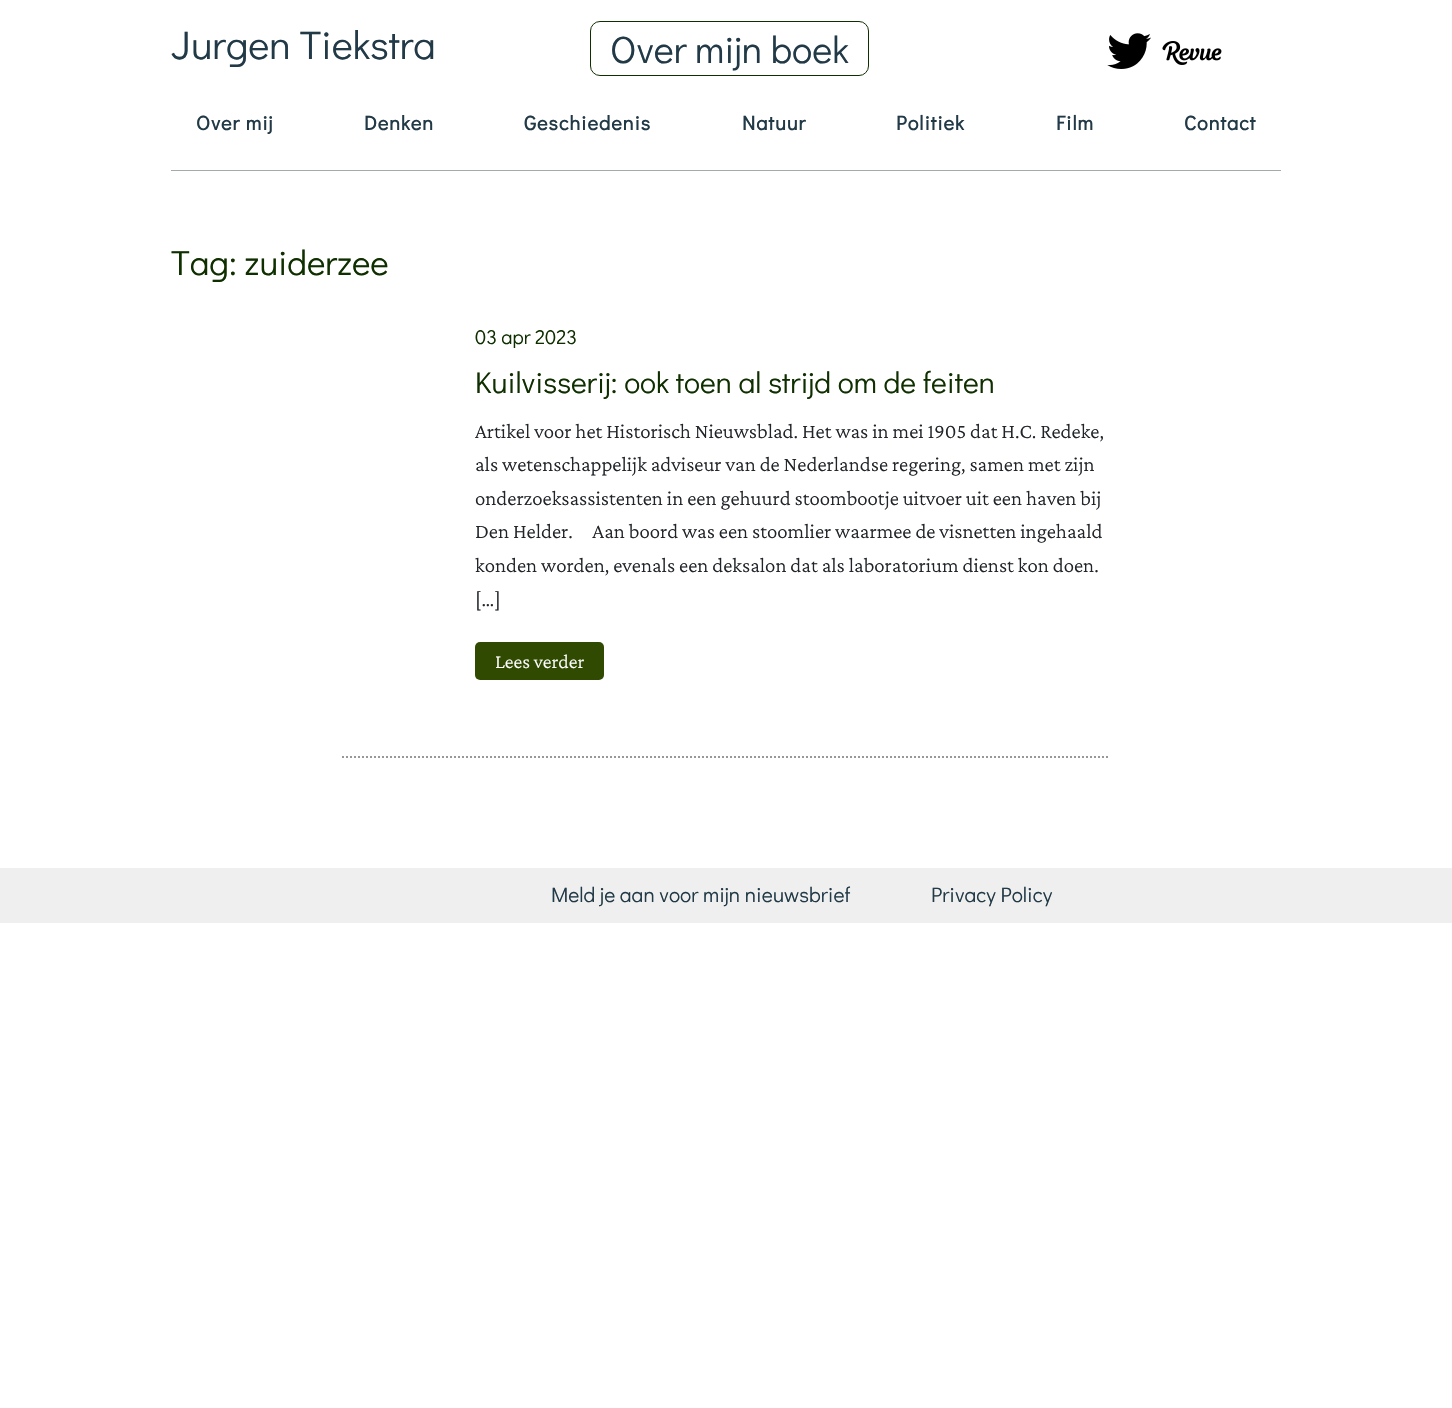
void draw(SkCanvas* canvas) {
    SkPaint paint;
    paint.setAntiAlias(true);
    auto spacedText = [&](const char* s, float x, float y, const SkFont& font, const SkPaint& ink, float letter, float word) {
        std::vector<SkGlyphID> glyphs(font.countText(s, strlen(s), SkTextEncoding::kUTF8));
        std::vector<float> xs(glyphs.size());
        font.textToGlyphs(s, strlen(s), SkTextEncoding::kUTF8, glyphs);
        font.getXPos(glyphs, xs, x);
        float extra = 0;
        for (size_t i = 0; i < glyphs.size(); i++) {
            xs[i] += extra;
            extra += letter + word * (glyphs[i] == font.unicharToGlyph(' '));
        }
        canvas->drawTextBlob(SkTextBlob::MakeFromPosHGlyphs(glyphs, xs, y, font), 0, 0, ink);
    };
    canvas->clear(0xFFFFFFFF);
    SkFont font1(fontMgr->matchFamilyStyle("Didact Gothic", SkFontStyle::Normal()), 40);
    font1.setSubpixel(true);
    paint.setColor(0xFF223A47);
    canvas->drawString("Jurgen Tiekstra", 171, 59, font1, paint);
    paint.setStyle(SkPaint::kStroke_Style);
    paint.setStrokeWidth(1);
    paint.setColor(0xFF0F2F00);
    canvas->drawRoundRect(SkRect::MakeXYWH(590.5f, 21.5f, 278, 54), 9.5f, 9.5f, paint);
    SkFont font2(fontMgr->matchFamilyStyle("Didact Gothic", SkFontStyle::Normal()), 38);
    font2.setSubpixel(true);
    paint.setStyle(SkPaint::kFill_Style);
    paint.setColor(0xFF223A47);
    canvas->drawString("Over mijn boek", 610, 63, font2, paint);
    canvas->drawImageRect(SkImages::DeferredFromEncodedData(SkData::MakeFromFileName("img1.png")), SkRect::MakeXYWH(1107, 33, 44, 36), SkSamplingOptions());
    canvas->drawImageRect(SkImages::DeferredFromEncodedData(SkData::MakeFromFileName("img2.png")), SkRect::MakeXYWH(1162, 41, 60, 24), SkSamplingOptions());
    paint.setColor(0xFFA3AAAB);
    canvas->drawRect(SkRect::MakeXYWH(171, 170, 1110, 1), paint);
    SkFont font3(fontMgr->matchFamilyStyle("Didact Gothic", SkFontStyle::Bold()), 20);
    font3.setSubpixel(true);
    paint.setColor(0xFF223A47);
    spacedText("Over mij", 196, 130, font3, paint, 1, 0);
    spacedText("Denken", 364, 130, font3, paint, 1, 0);
    spacedText("Geschiedenis", 524, 130, font3, paint, 1, 0);
    spacedText("Natuur", 742, 130, font3, paint, 1, 0);
    spacedText("Politiek", 896, 130, font3, paint, 1, 0);
    spacedText("Film", 1056, 130, font3, paint, 1, 0);
    spacedText("Contact", 1184, 130, font3, paint, 1, 0);
    SkFont font4(fontMgr->matchFamilyStyle("Didact Gothic", SkFontStyle::Normal()), 35);
    font4.setSubpixel(true);
    paint.setColor(0xFF0F2F00);
    canvas->drawString("Tag: zuiderzee", 171, 275, font4, paint);
    SkFont font5(fontMgr->matchFamilyStyle("Didact Gothic", SkFontStyle::Normal()), 20);
    font5.setSubpixel(true);
    canvas->drawString("03 apr 2023", 475, 344, font5, paint);
    SkFont font6(fontMgr->matchFamilyStyle("Didact Gothic", SkFontStyle::Normal()), 30);
    font6.setSubpixel(true);
    canvas->drawString("Kuilvisserij: ook toen al strijd om de feiten", 475, 393, font6, paint);
    SkFont font7(fontMgr->matchFamilyStyle("Crimson Pro", SkFontStyle(300, SkFontStyle::kNormal_Width, SkFontStyle::kUpright_Slant)), 21);
    font7.setSubpixel(true);
    paint.setColor(0xFF212529);
    canvas->drawString("Artikel voor het Historisch Nieuwsblad. Het was in mei 1905 dat H.C. Redeke,", 475, 438, font7, paint);
    canvas->drawString("als wetenschappelijk adviseur van de Nederlandse regering, samen met zijn", 475, 471, font7, paint);
    canvas->drawString("onderzoeksassistenten in een gehuurd stoombootje uitvoer uit een haven bij", 475, 505, font7, paint);
    canvas->drawString("Den Helder.     Aan boord was een stoomlier waarmee de visnetten ingehaald", 475, 538, font7, paint);
    canvas->drawString("konden worden, evenals een deksalon dat als laboratorium dienst kon doen.", 475, 572, font7, paint);
    canvas->drawString("[…]", 475, 606, font7, paint);
    paint.setColor(0xFF304B01);
    canvas->drawRoundRect(SkRect::MakeXYWH(475, 642, 129, 38), 5, 5, paint);
    SkFont font8(fontMgr->matchFamilyStyle("Crimson Pro", SkFontStyle(300, SkFontStyle::kNormal_Width, SkFontStyle::kUpright_Slant)), 20);
    font8.setSubpixel(true);
    paint.setColor(0xFFFFFFFF);
    canvas->drawString("Lees verder", 495, 668, font8, paint);
    paint.setStyle(SkPaint::kStroke_Style);
    paint.setStrokeWidth(2);
    paint.setColor(0xFF989898);
    paint.setPathEffect(SkDashPathEffect::Make({{2, 2}}, 0));
    canvas->drawPath(SkPathBuilder().moveTo(342, 757).lineTo(1110, 757).detach(), paint);
    paint.setPathEffect(nullptr);
    paint.setStyle(SkPaint::kFill_Style);
    paint.setColor(0xFFEFEFEF);
    canvas->drawRect(SkRect::MakeXYWH(0, 868, 1452, 55), paint);
    SkFont font9(fontMgr->matchFamilyStyle("Didact Gothic", SkFontStyle::Normal()), 21);
    font9.setSubpixel(true);
    paint.setColor(0xFF223A47);
    canvas->drawString("Meld je aan voor mijn nieuwsbrief", 551, 902, font9, paint);
    canvas->drawString("Privacy Policy", 931, 902, font9, paint);
}
